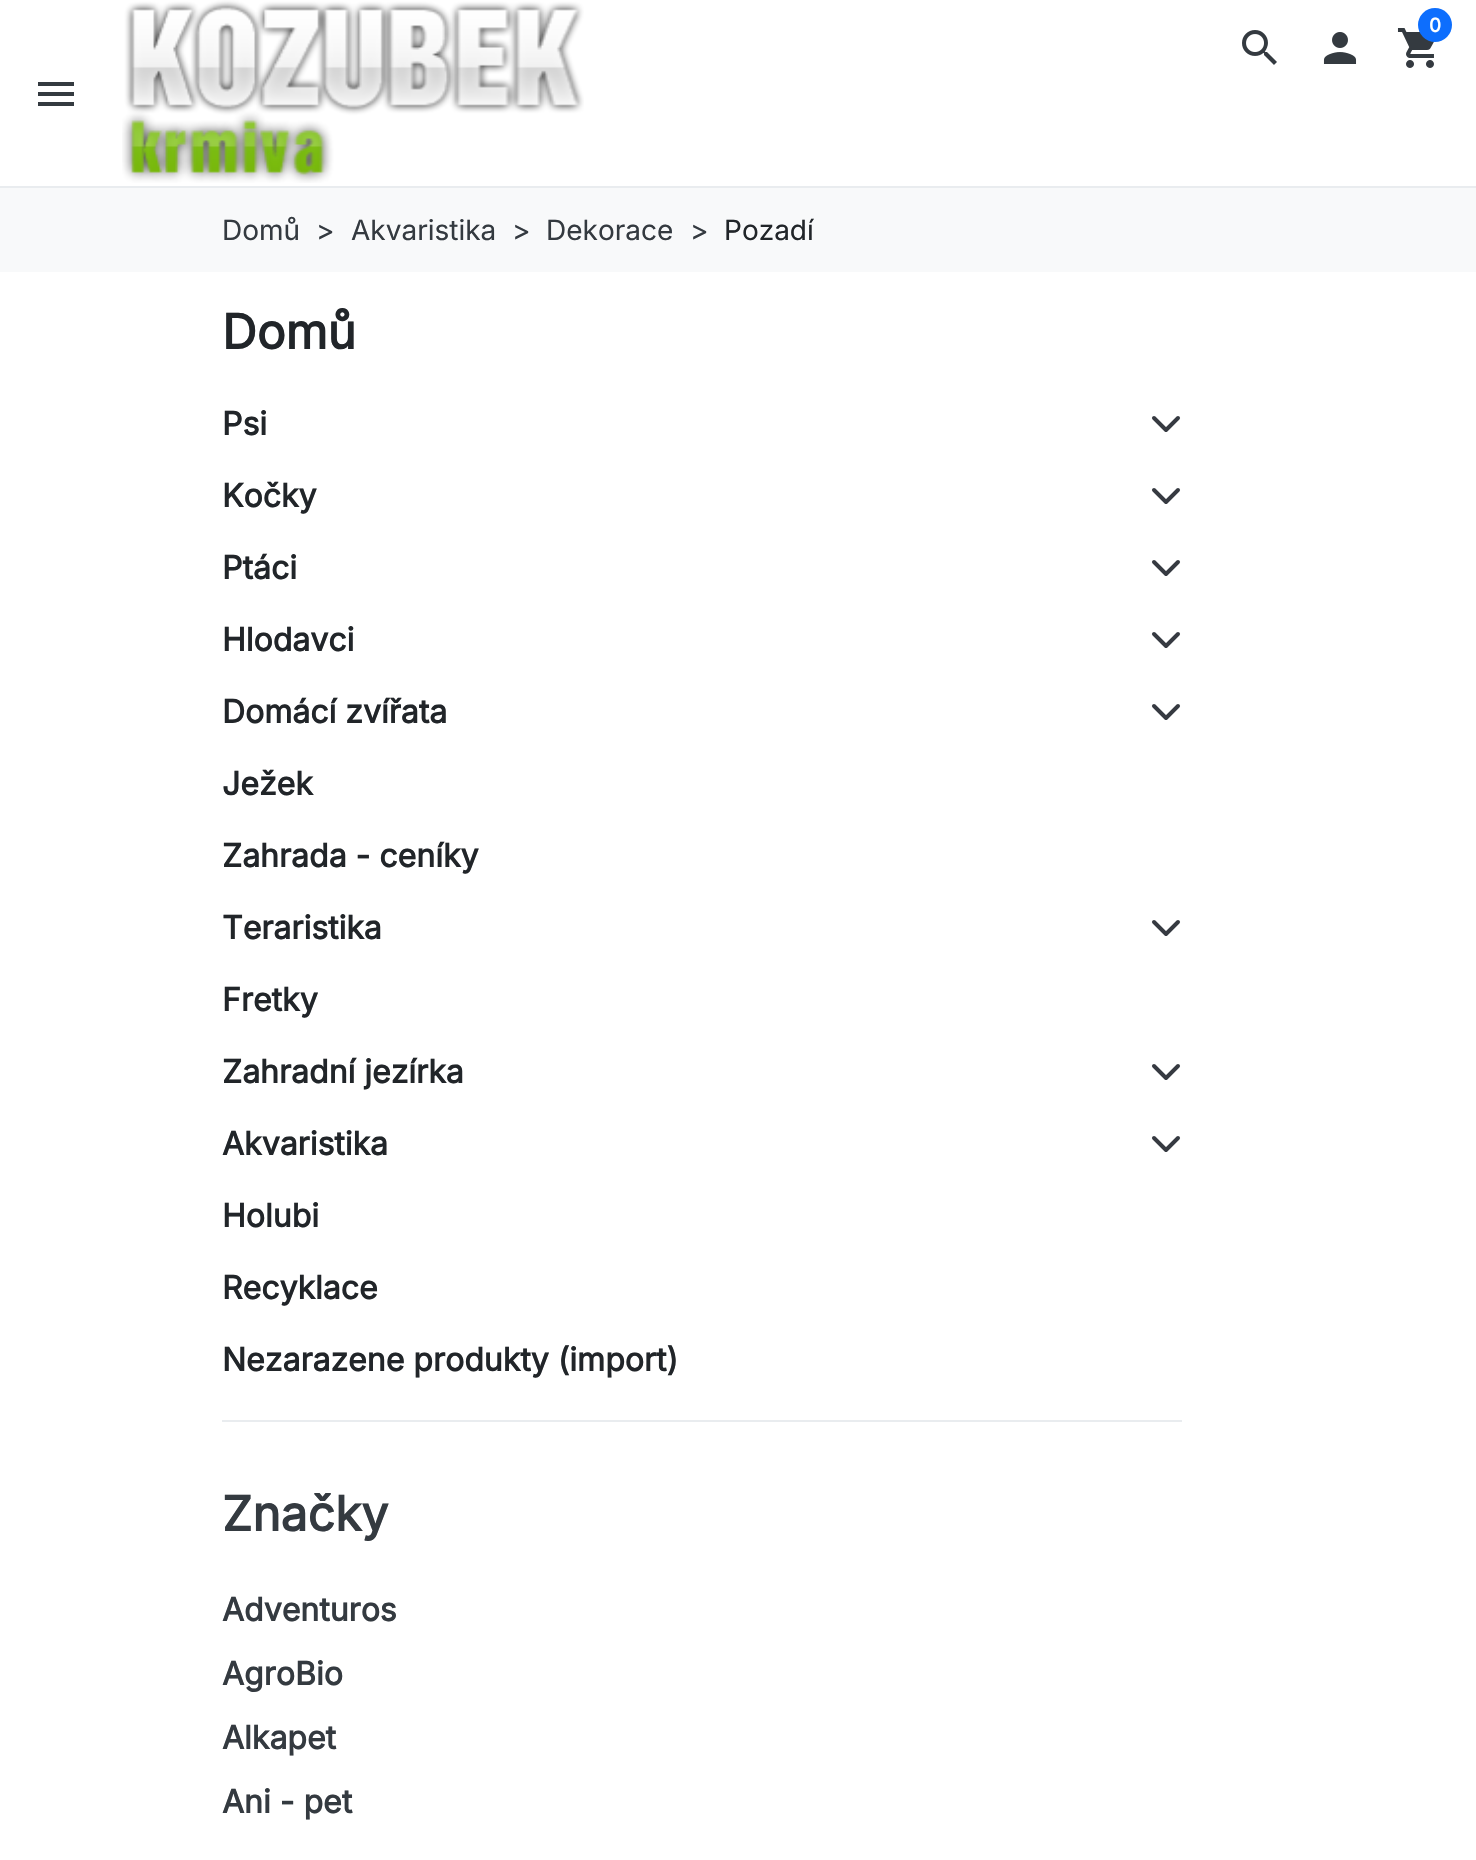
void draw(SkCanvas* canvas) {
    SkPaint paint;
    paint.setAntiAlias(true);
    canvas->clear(0xFFFFFFFF);
    paint.setColor(0xFFE9ECEF);
    canvas->drawRect(SkRect::MakeXYWH(0, 186, 1476, 2), paint);
    canvas->drawImageRect(SkImages::DeferredFromEncodedData(SkData::MakeFromFileName("img1.png")), SkRect::MakeXYWH(122, 0, 462, 183), SkSamplingOptions());
    canvas->drawImageRect(SkImages::DeferredFromEncodedData(SkData::MakeFromFileName("img2.png")), SkRect::MakeXYWH(1397, 28, 38, 40), SkSamplingOptions());
    paint.setColor(0xFF0D6EFD);
    canvas->drawCircle(1435, 25, 17, paint);
    SkFont font1(fontMgr->matchFamilyStyle("Inter", SkFontStyle::Bold()), 19);
    font1.setSubpixel(true);
    paint.setColor(0xFFFFFFFF);
    canvas->drawString("0", 1429, 32, font1, paint);
    canvas->drawImageRect(SkImages::DeferredFromEncodedData(SkData::MakeFromFileName("img3.png")), SkRect::MakeXYWH(1242, 30, 35, 35), SkSamplingOptions());
    canvas->drawImageRect(SkImages::DeferredFromEncodedData(SkData::MakeFromFileName("img4.png")), SkRect::MakeXYWH(1323, 32, 34, 32), SkSamplingOptions());
    paint.setColor(0xFF343A40);
    canvas->drawPath(SkPathBuilder().moveTo(38, 82).lineTo(74, 82).lineTo(74, 86).lineTo(38, 86).close().moveTo(38, 96).lineTo(38, 92).lineTo(74, 92).lineTo(74, 96).close().moveTo(38, 106).lineTo(38, 102).lineTo(74, 102).lineTo(74, 106).close().detach(), paint);
    paint.setColor(0xFFF8F9FA);
    canvas->drawRect(SkRect::MakeXYWH(0, 188, 1476, 84), paint);
    SkFont font2(fontMgr->matchFamilyStyle("Inter", SkFontStyle::Normal()), 28);
    font2.setSubpixel(true);
    paint.setColor(0xFF343A40);
    canvas->drawString("Domů", 222, 240, font2, paint);
    canvas->drawString(">", 316, 240, font2, paint);
    canvas->drawString("Akvaristika", 351, 240, font2, paint);
    canvas->drawString(">", 512, 240, font2, paint);
    canvas->drawString("Dekorace", 546, 240, font2, paint);
    canvas->drawString(">", 690, 240, font2, paint);
    paint.setColor(0xFF212529);
    canvas->drawString("Pozadí", 724, 240, font2, paint);
    paint.setColor(0xFFE9ECEF);
    canvas->drawRect(SkRect::MakeXYWH(222, 1420, 960, 2), paint);
    SkFont font3(fontMgr->matchFamilyStyle("Inter", SkFontStyle::Bold()), 48);
    font3.setSubpixel(true);
    paint.setColor(0xFF212529);
    canvas->drawString("Domů", 222, 349, font3, paint);
    SkFont font4(fontMgr->matchFamilyStyle("Inter", SkFontStyle::Bold()), 32);
    font4.setSubpixel(true);
    canvas->drawString("Psi", 222, 435, font4, paint);
    paint.setStyle(SkPaint::kStroke_Style);
    paint.setStrokeWidth(4);
    paint.setStrokeCap(SkPaint::kRound_Cap);
    paint.setStrokeJoin(SkPaint::kRound_Join);
    paint.setColor(0xFF363A41);
    canvas->drawPath(SkPathBuilder().moveTo(1154, 418).lineTo(1166, 430).lineTo(1178, 418).detach(), paint);
    paint.setStyle(SkPaint::kFill_Style);
    paint.setColor(0xFF212529);
    canvas->drawString("Kočky", 222, 507, font4, paint);
    paint.setStyle(SkPaint::kStroke_Style);
    paint.setColor(0xFF363A41);
    canvas->drawPath(SkPathBuilder().moveTo(1154, 490).lineTo(1166, 502).lineTo(1178, 490).detach(), paint);
    paint.setStyle(SkPaint::kFill_Style);
    paint.setColor(0xFF212529);
    canvas->drawString("Ptáci", 222, 579, font4, paint);
    paint.setStyle(SkPaint::kStroke_Style);
    paint.setColor(0xFF363A41);
    canvas->drawPath(SkPathBuilder().moveTo(1154, 562).lineTo(1166, 574).lineTo(1178, 562).detach(), paint);
    paint.setStyle(SkPaint::kFill_Style);
    paint.setColor(0xFF212529);
    canvas->drawString("Hlodavci", 222, 651, font4, paint);
    paint.setStyle(SkPaint::kStroke_Style);
    paint.setColor(0xFF363A41);
    canvas->drawPath(SkPathBuilder().moveTo(1154, 634).lineTo(1166, 646).lineTo(1178, 634).detach(), paint);
    paint.setStyle(SkPaint::kFill_Style);
    paint.setColor(0xFF212529);
    canvas->drawString("Domácí zvířata", 222, 723, font4, paint);
    paint.setStyle(SkPaint::kStroke_Style);
    paint.setColor(0xFF363A41);
    canvas->drawPath(SkPathBuilder().moveTo(1154, 706).lineTo(1166, 718).lineTo(1178, 706).detach(), paint);
    paint.setStyle(SkPaint::kFill_Style);
    paint.setColor(0xFF212529);
    canvas->drawString("Ježek", 222, 795, font4, paint);
    canvas->drawString("Zahrada - ceníky", 222, 867, font4, paint);
    canvas->drawString("Teraristika", 222, 939, font4, paint);
    paint.setStyle(SkPaint::kStroke_Style);
    paint.setColor(0xFF363A41);
    canvas->drawPath(SkPathBuilder().moveTo(1154, 922).lineTo(1166, 934).lineTo(1178, 922).detach(), paint);
    paint.setStyle(SkPaint::kFill_Style);
    paint.setColor(0xFF212529);
    canvas->drawString("Fretky", 222, 1011, font4, paint);
    canvas->drawString("Zahradní jezírka", 222, 1083, font4, paint);
    paint.setStyle(SkPaint::kStroke_Style);
    paint.setColor(0xFF363A41);
    canvas->drawPath(SkPathBuilder().moveTo(1154, 1066).lineTo(1166, 1078).lineTo(1178, 1066).detach(), paint);
    paint.setStyle(SkPaint::kFill_Style);
    paint.setColor(0xFF212529);
    canvas->drawString("Akvaristika", 222, 1155, font4, paint);
    paint.setStyle(SkPaint::kStroke_Style);
    paint.setColor(0xFF363A41);
    canvas->drawPath(SkPathBuilder().moveTo(1154, 1138).lineTo(1166, 1150).lineTo(1178, 1138).detach(), paint);
    paint.setStyle(SkPaint::kFill_Style);
    paint.setColor(0xFF212529);
    canvas->drawString("Holubi", 222, 1227, font4, paint);
    canvas->drawString("Recyklace", 222, 1299, font4, paint);
    canvas->drawString("Nezarazene produkty (import)", 222, 1371, font4, paint);
    paint.setColor(0xFF343A40);
    canvas->drawString("Značky", 222, 1531, font3, paint);
    canvas->drawString("Adventuros", 222, 1621, font4, paint);
    canvas->drawString("AgroBio", 222, 1685, font4, paint);
    canvas->drawString("Alkapet", 222, 1749, font4, paint);
    canvas->drawString("Ani - pet", 222, 1813, font4, paint);
}
